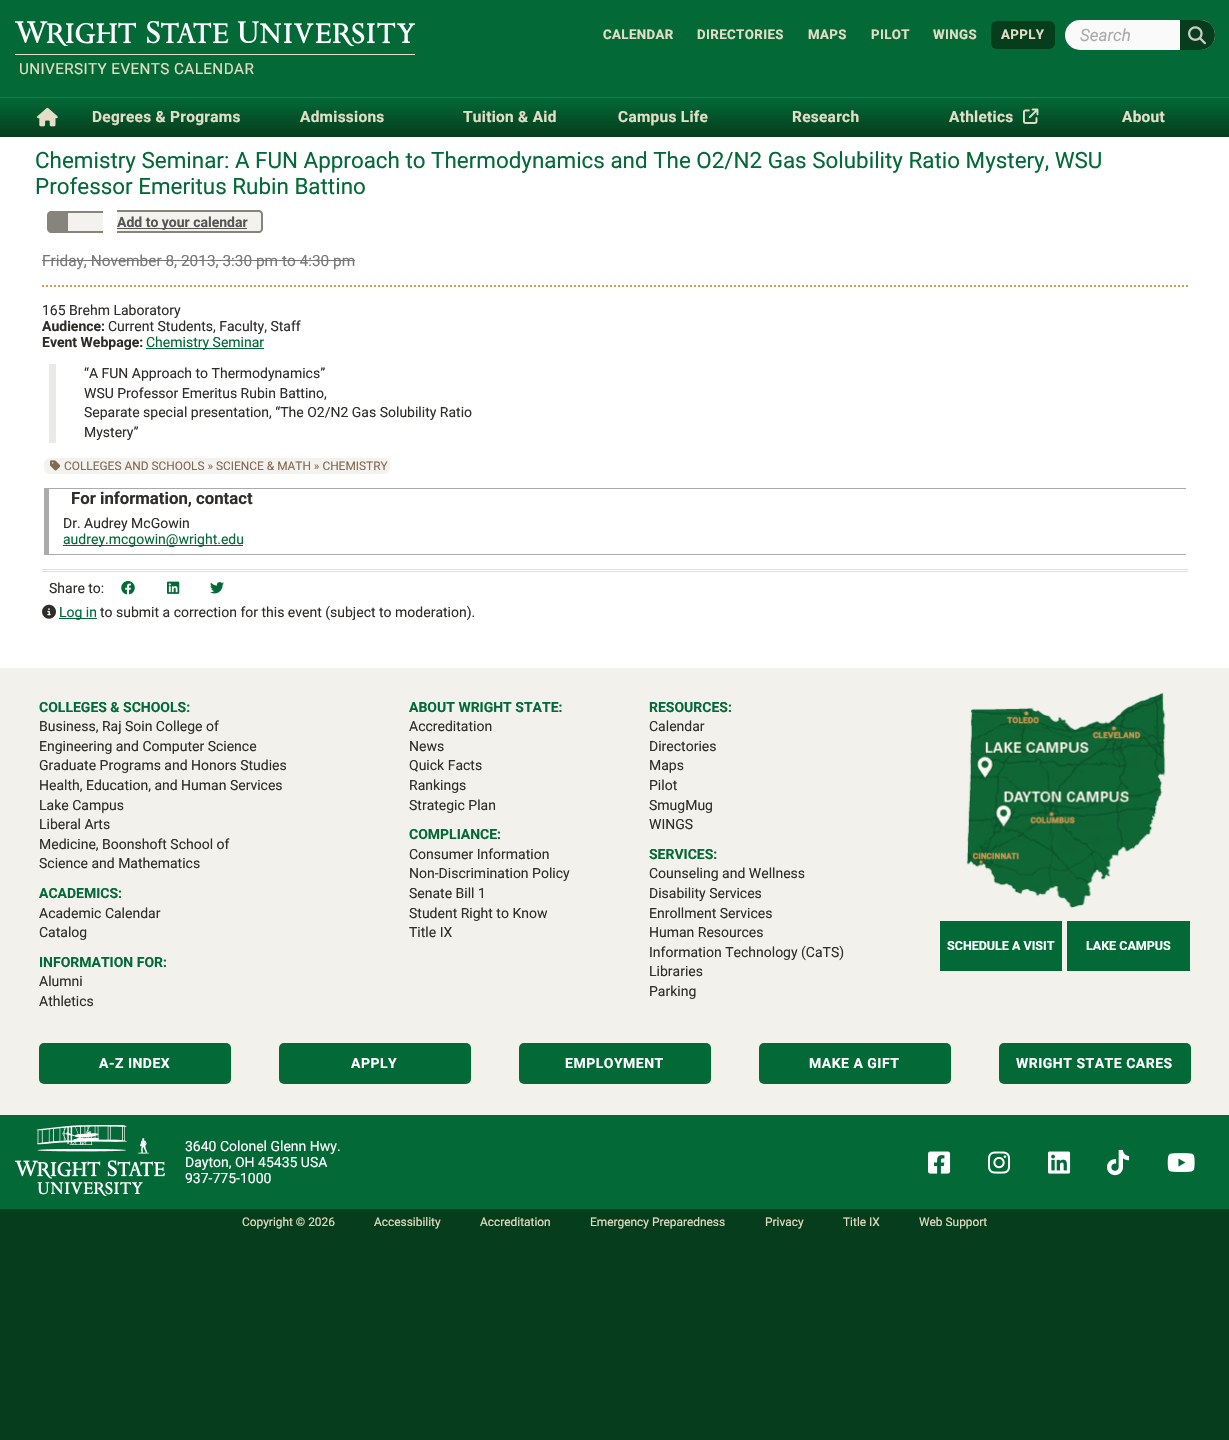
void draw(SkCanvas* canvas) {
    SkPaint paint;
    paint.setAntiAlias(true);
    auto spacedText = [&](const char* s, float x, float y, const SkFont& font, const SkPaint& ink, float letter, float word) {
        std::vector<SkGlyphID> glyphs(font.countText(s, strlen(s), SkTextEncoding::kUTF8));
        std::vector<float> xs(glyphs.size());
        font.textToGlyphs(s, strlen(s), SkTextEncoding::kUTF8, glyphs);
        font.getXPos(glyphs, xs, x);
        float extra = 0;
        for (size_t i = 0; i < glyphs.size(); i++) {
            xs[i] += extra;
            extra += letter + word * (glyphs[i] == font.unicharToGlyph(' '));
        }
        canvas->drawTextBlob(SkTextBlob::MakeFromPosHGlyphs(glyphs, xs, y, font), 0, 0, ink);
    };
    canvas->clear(0xFF063D1C);
    paint.setColor(0xFFFFFFFF);
    canvas->drawRect(SkRect::MakeXYWH(0, 137, 1229, 531), paint);
    paint.setColor(0xFF026937);
    canvas->drawRect(SkRect::MakeXYWH(0, 0, 1229, 97), paint);
    paint.setColor(0xFF307050);
    canvas->drawRect(SkRect::MakeXYWH(0, 97, 1229, 1), paint);
    SkFont font1(fontMgr->matchFamilyStyle("Roboto", SkFontStyle::Bold()), 13.25f);
    font1.setSubpixel(true);
    paint.setColor(0xFFE4DEC7);
    spacedText("CALENDAR", 603, 39, font1, paint, 0.4f, 0);
    spacedText("DIRECTORIES", 697, 39, font1, paint, 0.4f, 0);
    spacedText("MAPS", 808, 39, font1, paint, 0.4f, 0);
    spacedText("PILOT", 871, 39, font1, paint, 0.4f, 0);
    spacedText("WINGS", 933, 39, font1, paint, 0.4f, 0);
    paint.setColor(0xFF063D1C);
    canvas->drawRoundRect(SkRect::MakeXYWH(991, 21, 64, 28), 6, 6, paint);
    paint.setColor(0xFFE4DEC7);
    spacedText("APPLY", 1001, 39, font1, paint, 0.4f, 0);
    paint.setColor(0xFFFAFAFA);
    canvas->drawRoundRect(SkRect::MakeXYWH(1065, 20, 150, 30), 15, 15, paint);
    SkFont font2(fontMgr->matchFamilyStyle("Roboto", SkFontStyle::Italic()), 17);
    font2.setSubpixel(true);
    paint.setColor(0xFFAAAAAA);
    canvas->drawString("Search", 1080, 41, font2, paint);
    paint.setColor(0xFF063D1C);
    canvas->drawPath(SkPathBuilder().moveTo(1180, 20).lineTo(1200, 20).cubicTo(1208.5f, 20, 1215, 26.5f, 1215, 35).cubicTo(1215, 43.5f, 1208.5f, 50, 1200, 50).lineTo(1180, 50).close().detach(), paint);
    canvas->drawImageRect(SkImages::DeferredFromEncodedData(SkData::MakeFromFileName("img1.png")), SkRect::MakeXYWH(1188, 26, 18, 19), SkSamplingOptions());
    canvas->drawImageRect(SkImages::DeferredFromEncodedData(SkData::MakeFromFileName("img2.png")), SkRect::MakeXYWH(15, 21, 400, 25), SkSamplingOptions());
    paint.setColor(0xFFE4DEC7);
    canvas->drawRect(SkRect::MakeXYWH(15, 54, 400, 1), paint);
    SkFont font3(fontMgr->matchFamilyStyle("Roboto", SkFontStyle::Normal()), 15.25f);
    font3.setSubpixel(true);
    spacedText("UNIVERSITY EVENTS CALENDAR", 19, 74, font3, paint, 0.4f, 0);
    {
        const SkColor colors[] = {0xFF026937, 0xFF063D1D};
        const float stops[] = {0, 1};
        const SkPoint ends[] = {{615, 98}, {615, 137}};
        paint.setShader(SkGradientShader::MakeLinear(ends, colors, stops, 2, SkTileMode::kClamp));
        paint.setAlpha(255);
    }
    canvas->drawRect(SkRect::MakeXYWH(0, 98, 1229, 37), paint);
    canvas->drawImageRect(SkImages::DeferredFromEncodedData(SkData::MakeFromFileName("img3.png")), SkRect::MakeXYWH(37, 107, 21, 20), SkSamplingOptions());
    SkFont font4(fontMgr->matchFamilyStyle("Roboto", SkFontStyle::Bold()), 15.4f);
    font4.setSubpixel(true);
    paint.setShader(nullptr);
    paint.setColor(0xFFE4DEC7);
    spacedText("Degrees & Programs", 92, 122, font4, paint, 0.3f, 0);
    spacedText("Admissions", 300, 122, font4, paint, 0.3f, 0);
    spacedText("Tuition & Aid", 463, 122, font4, paint, 0.3f, 0);
    spacedText("Campus Life", 618, 122, font4, paint, 0.3f, 0);
    spacedText("Research", 792, 122, font4, paint, 0.3f, 0);
    spacedText("Athletics", 949, 122, font4, paint, 0.3f, 0);
    canvas->drawImageRect(SkImages::DeferredFromEncodedData(SkData::MakeFromFileName("img4.png")), SkRect::MakeXYWH(1023, 108, 16, 16), SkSamplingOptions());
    spacedText("About", 1122, 122, font4, paint, 0.3f, 0);
    SkFont font5(fontMgr->matchFamilyStyle("Roboto", SkFontStyle::Normal()), 22.4f);
    font5.setSubpixel(true);
    paint.setColor(0xFF026937);
    canvas->drawString("Chemistry Seminar: A FUN Approach to Thermodynamics and The O2/N2 Gas Solubility Ratio Mystery, WSU", 35, 168, font5, paint);
    canvas->drawString("Professor Emeritus Rubin Battino", 35, 194, font5, paint);
    paint.setColor(0xFFF4F2EF);
    canvas->drawPath(SkPathBuilder().moveTo(117, 212).lineTo(259, 212).cubicTo(260, 212, 261, 213, 261, 214).lineTo(261, 229).cubicTo(261, 230, 260, 231, 259, 231).lineTo(117, 231).close().detach(), paint);
    paint.setColor(0xFF87847B);
    canvas->drawPath(SkPathBuilder(SkPathFillType::kEvenOdd).moveTo(117, 210).lineTo(259, 210).cubicTo(261, 210, 263, 212, 263, 214).lineTo(263, 229).cubicTo(263, 231, 261, 233, 259, 233).lineTo(117, 233).close().moveTo(117, 212).lineTo(259, 212).cubicTo(260, 212, 261, 213, 261, 214).lineTo(261, 229).cubicTo(261, 230, 260, 231, 259, 231).lineTo(117, 231).close().detach(), paint);
    paint.setColor(0xFF555555);
    canvas->drawRect(SkRect::MakeXYWH(117, 228, 130, 1), paint);
    SkFont font6(fontMgr->matchFamilyStyle("Roboto", SkFontStyle::Bold()), 14);
    font6.setSubpixel(true);
    canvas->drawString("Add to your calendar", 117, 227, font6, paint);
    paint.setColor(0xFFF4F2EF);
    canvas->drawRect(SkRect::MakeXYWH(68, 213, 35, 18), paint);
    paint.setColor(0xFF87847B);
    canvas->drawPath(SkPathBuilder(SkPathFillType::kEvenOdd).moveTo(51, 211).lineTo(103, 211).lineTo(103, 233).lineTo(51, 233).cubicTo(49, 233, 47, 231, 47, 229).lineTo(47, 215).cubicTo(47, 213, 49, 211, 51, 211).close().moveTo(68, 213).lineTo(103, 213).lineTo(103, 231).lineTo(68, 231).close().detach(), paint);
    paint.setStyle(SkPaint::kStroke_Style);
    paint.setStrokeWidth(2);
    paint.setColor(0xFFCEA052);
    paint.setPathEffect(SkDashPathEffect::Make({{2, 2}}, 0));
    canvas->drawPath(SkPathBuilder().moveTo(42, 286).lineTo(1188, 286).detach(), paint);
    paint.setPathEffect(nullptr);
    SkFont font7(fontMgr->matchFamilyStyle("Roboto", SkFontStyle::Normal()), 15.4f);
    font7.setSubpixel(true);
    paint.setStyle(SkPaint::kFill_Style);
    paint.setColor(0xFF777777);
    canvas->drawString("Friday, November 8, 2013, 3:30 pm to 4:30 pm", 42, 266, font7, paint);
    canvas->drawRect(SkRect::MakeXYWH(42, 260, 313, 1), paint);
    SkFont font8(fontMgr->matchFamilyStyle("Roboto", SkFontStyle::Normal()), 14);
    font8.setSubpixel(true);
    paint.setColor(0xFF2E2D29);
    canvas->drawString("165 Brehm Laboratory", 42, 315, font8, paint);
    canvas->drawString("Audience:", 42, 331, font6, paint);
    canvas->drawString("Current Students, Faculty, Staff", 108, 331, font8, paint);
    canvas->drawString("Event Webpage:", 42, 347, font6, paint);
    paint.setColor(0xFF026937);
    canvas->drawRect(SkRect::MakeXYWH(146, 348, 118, 1), paint);
    canvas->drawString("Chemistry Seminar", 146, 347, font8, paint);
    paint.setColor(0xFFE8EBE5);
    canvas->drawRect(SkRect::MakeXYWH(49, 364, 7, 79), paint);
    paint.setColor(0xFF2E2D29);
    canvas->drawString("“A FUN Approach to Thermodynamics”", 84, 378, font8, paint);
    canvas->drawString("WSU Professor Emeritus Rubin Battino,", 84, 398, font8, paint);
    canvas->drawString("Separate special presentation, “The O2/N2 Gas Solubility Ratio", 84, 417, font8, paint);
    canvas->drawString("Mystery”", 84, 437, font8, paint);
    paint.setColor(0xFFF4F2EF);
    canvas->drawRoundRect(SkRect::MakeXYWH(44, 458, 346, 16), 6, 6, paint);
    canvas->drawImageRect(SkImages::DeferredFromEncodedData(SkData::MakeFromFileName("img5.png")), SkRect::MakeXYWH(50, 460, 11, 11), SkSamplingOptions());
    SkFont font9(fontMgr->matchFamilyStyle("Roboto", SkFontStyle::Normal()), 11.9f);
    font9.setSubpixel(true);
    paint.setColor(0xFF836950);
    canvas->drawString("COLLEGES AND SCHOOLS » SCIENCE & MATH » CHEMISTRY", 64, 470, font9, paint);
    paint.setColor(0xFFAAAAAA);
    canvas->drawRect(SkRect::MakeXYWH(44, 488, 1142, 1), paint);
    canvas->drawRect(SkRect::MakeXYWH(44, 554, 1142, 1), paint);
    canvas->drawRect(SkRect::MakeXYWH(44, 488, 5, 67), paint);
    SkFont font10(fontMgr->matchFamilyStyle("Roboto", SkFontStyle::Bold()), 16.75f);
    font10.setSubpixel(true);
    paint.setColor(0xFF2E2D29);
    canvas->drawString("For information, contact", 71, 504, font10, paint);
    canvas->drawString("Dr. Audrey McGowin", 63, 528, font8, paint);
    paint.setColor(0xFF026937);
    canvas->drawRect(SkRect::MakeXYWH(63, 545, 180, 1), paint);
    canvas->drawString("audrey.mcgowin@wright.edu", 63, 544, font8, paint);
    paint.setColor(0xFFDEDEDE);
    canvas->drawRect(SkRect::MakeXYWH(42, 569, 1146, 1), paint);
    canvas->drawRect(SkRect::MakeXYWH(42, 571, 1146, 1), paint);
    paint.setColor(0xFF2E2D29);
    canvas->drawString("Share to:", 49, 593, font8, paint);
    canvas->drawImageRect(SkImages::DeferredFromEncodedData(SkData::MakeFromFileName("img6.png")), SkRect::MakeXYWH(121, 581, 14, 14), SkSamplingOptions());
    canvas->drawImageRect(SkImages::DeferredFromEncodedData(SkData::MakeFromFileName("img7.png")), SkRect::MakeXYWH(167, 581, 13, 13), SkSamplingOptions());
    canvas->drawImageRect(SkImages::DeferredFromEncodedData(SkData::MakeFromFileName("img8.png")), SkRect::MakeXYWH(210, 582, 14, 12), SkSamplingOptions());
    canvas->drawImageRect(SkImages::DeferredFromEncodedData(SkData::MakeFromFileName("img9.png")), SkRect::MakeXYWH(42, 604, 14, 15), SkSamplingOptions());
    paint.setColor(0xFF026937);
    canvas->drawRect(SkRect::MakeXYWH(59, 618, 38, 1), paint);
    canvas->drawString("Log in", 59, 617, font8, paint);
    paint.setColor(0xFF2E2D29);
    canvas->drawString("to submit a correction for this event (subject to moderation).", 100, 617, font8, paint);
    paint.setColor(0xFFF2F1EB);
    canvas->drawRect(SkRect::MakeXYWH(0, 668, 1229, 447), paint);
    paint.setColor(0xFF026937);
    canvas->drawString("COLLEGES & SCHOOLS:", 39, 712, font6, paint);
    paint.setColor(0xFF2E2D29);
    canvas->drawString("Business, Raj Soin College of", 39, 731, font8, paint);
    canvas->drawString("Engineering and Computer Science", 39, 751, font8, paint);
    canvas->drawString("Graduate Programs and Honors Studies", 39, 770, font8, paint);
    canvas->drawString("Health, Education, and Human Services", 39, 790, font8, paint);
    canvas->drawString("Lake Campus", 39, 810, font8, paint);
    canvas->drawString("Liberal Arts", 39, 829, font8, paint);
    canvas->drawString("Medicine, Boonshoft School of", 39, 849, font8, paint);
    canvas->drawString("Science and Mathematics", 39, 868, font8, paint);
    paint.setColor(0xFF026937);
    canvas->drawString("ACADEMICS:", 39, 898, font6, paint);
    paint.setColor(0xFF2E2D29);
    canvas->drawString("Academic Calendar", 39, 918, font8, paint);
    canvas->drawString("Catalog", 39, 937, font8, paint);
    paint.setColor(0xFF026937);
    canvas->drawString("INFORMATION FOR:", 39, 967, font6, paint);
    paint.setColor(0xFF2E2D29);
    canvas->drawString("Alumni", 39, 986, font8, paint);
    canvas->drawString("Athletics", 39, 1006, font8, paint);
    paint.setColor(0xFF026937);
    canvas->drawString("ABOUT WRIGHT STATE:", 409, 712, font6, paint);
    paint.setColor(0xFF2E2D29);
    canvas->drawString("Accreditation", 409, 731, font8, paint);
    canvas->drawString("News", 409, 751, font8, paint);
    canvas->drawString("Quick Facts", 409, 770, font8, paint);
    canvas->drawString("Rankings", 409, 790, font8, paint);
    canvas->drawString("Strategic Plan", 409, 810, font8, paint);
    paint.setColor(0xFF026937);
    canvas->drawString("COMPLIANCE:", 409, 839, font6, paint);
    paint.setColor(0xFF2E2D29);
    canvas->drawString("Consumer Information", 409, 859, font8, paint);
    canvas->drawString("Non-Discrimination Policy", 409, 878, font8, paint);
    canvas->drawString("Senate Bill 1", 409, 898, font8, paint);
    canvas->drawString("Student Right to Know", 409, 918, font8, paint);
    canvas->drawString("Title IX", 409, 937, font8, paint);
    paint.setColor(0xFF026937);
    canvas->drawString("RESOURCES:", 649, 712, font6, paint);
    paint.setColor(0xFF2E2D29);
    canvas->drawString("Calendar", 649, 731, font8, paint);
    canvas->drawString("Directories", 649, 751, font8, paint);
    canvas->drawString("Maps", 649, 770, font8, paint);
    canvas->drawString("Pilot", 649, 790, font8, paint);
    canvas->drawString("SmugMug", 649, 810, font8, paint);
    canvas->drawString("WINGS", 649, 829, font8, paint);
    paint.setColor(0xFF026937);
    canvas->drawString("SERVICES:", 649, 859, font6, paint);
    paint.setColor(0xFF2E2D29);
    canvas->drawString("Counseling and Wellness", 649, 878, font8, paint);
    canvas->drawString("Disability Services", 649, 898, font8, paint);
    canvas->drawString("Enrollment Services", 649, 918, font8, paint);
    canvas->drawString("Human Resources", 649, 937, font8, paint);
    canvas->drawString("Information Technology (CaTS)", 649, 957, font8, paint);
    canvas->drawString("Libraries", 649, 976, font8, paint);
    canvas->drawString("Parking", 649, 996, font8, paint);
    canvas->drawImageRect(SkImages::DeferredFromEncodedData(SkData::MakeFromFileName("img10.png")), SkRect::MakeXYWH(966, 692, 200, 216), SkSamplingOptions());
    paint.setColor(0xFF026937);
    canvas->drawRect(SkRect::MakeXYWH(940, 921, 122, 50), paint);
    SkFont font11(fontMgr->matchFamilyStyle("Roboto", SkFontStyle::Bold()), 12.5f);
    font11.setSubpixel(true);
    paint.setColor(0xFFFFFFFF);
    canvas->drawString("SCHEDULE A VISIT", 947, 950, font11, paint);
    paint.setColor(0xFF026937);
    canvas->drawRect(SkRect::MakeXYWH(1067, 921, 123, 50), paint);
    paint.setColor(0xFFFFFFFF);
    canvas->drawString("LAKE CAMPUS", 1086, 950, font11, paint);
    paint.setColor(0xFF026937);
    canvas->drawRoundRect(SkRect::MakeXYWH(39, 1043, 192, 41), 5, 5, paint);
    paint.setColor(0xFFFFFFFF);
    spacedText("A-Z INDEX", 99, 1068, font6, paint, 0.5f, 0);
    paint.setColor(0xFF026937);
    canvas->drawRoundRect(SkRect::MakeXYWH(279, 1043, 192, 41), 5, 5, paint);
    paint.setColor(0xFFFFFFFF);
    spacedText("APPLY", 351, 1068, font6, paint, 0.5f, 0);
    paint.setColor(0xFF026937);
    canvas->drawRoundRect(SkRect::MakeXYWH(519, 1043, 192, 41), 5, 5, paint);
    paint.setColor(0xFFFFFFFF);
    spacedText("EMPLOYMENT", 565, 1068, font6, paint, 0.5f, 0);
    paint.setColor(0xFF026937);
    canvas->drawRoundRect(SkRect::MakeXYWH(759, 1043, 192, 41), 5, 5, paint);
    paint.setColor(0xFFFFFFFF);
    spacedText("MAKE A GIFT", 809, 1068, font6, paint, 0.5f, 0);
    paint.setColor(0xFF026937);
    canvas->drawRoundRect(SkRect::MakeXYWH(999, 1043, 192, 41), 5, 5, paint);
    paint.setColor(0xFFFFFFFF);
    spacedText("WRIGHT STATE CARES", 1016, 1068, font6, paint, 0.5f, 0);
    paint.setColor(0xFF026937);
    canvas->drawRect(SkRect::MakeXYWH(0, 1115, 1229, 94), paint);
    canvas->drawImageRect(SkImages::DeferredFromEncodedData(SkData::MakeFromFileName("img11.png")), SkRect::MakeXYWH(15, 1125, 150, 71), SkSamplingOptions());
    paint.setColor(0xFFFFFFFF);
    canvas->drawString("3640 Colonel Glenn Hwy.", 185, 1151, font8, paint);
    canvas->drawString("Dayton, OH 45435 USA", 185, 1167, font8, paint);
    canvas->drawString("937-775-1000", 185, 1183, font8, paint);
    canvas->drawImageRect(SkImages::DeferredFromEncodedData(SkData::MakeFromFileName("img12.png")), SkRect::MakeXYWH(928, 1151, 23, 23), SkSamplingOptions());
    canvas->drawImageRect(SkImages::DeferredFromEncodedData(SkData::MakeFromFileName("img13.png")), SkRect::MakeXYWH(988, 1151, 23, 23), SkSamplingOptions());
    canvas->drawImageRect(SkImages::DeferredFromEncodedData(SkData::MakeFromFileName("img14.png")), SkRect::MakeXYWH(1048, 1151, 23, 23), SkSamplingOptions());
    canvas->drawImageRect(SkImages::DeferredFromEncodedData(SkData::MakeFromFileName("img15.png")), SkRect::MakeXYWH(1107, 1149, 23, 27), SkSamplingOptions());
    canvas->drawImageRect(SkImages::DeferredFromEncodedData(SkData::MakeFromFileName("img16.png")), SkRect::MakeXYWH(1167, 1153, 28, 19), SkSamplingOptions());
    paint.setColor(0xFFE4DEC7);
    canvas->drawString("Copyright © 2026", 242, 1226, font9, paint);
    canvas->drawString("Accessibility", 374, 1226, font9, paint);
    canvas->drawString("Accreditation", 480, 1226, font9, paint);
    canvas->drawString("Emergency Preparedness", 590, 1226, font9, paint);
    canvas->drawString("Privacy", 765, 1226, font9, paint);
    canvas->drawString("Title IX", 843, 1226, font9, paint);
    canvas->drawString("Web Support", 919, 1226, font9, paint);
}
